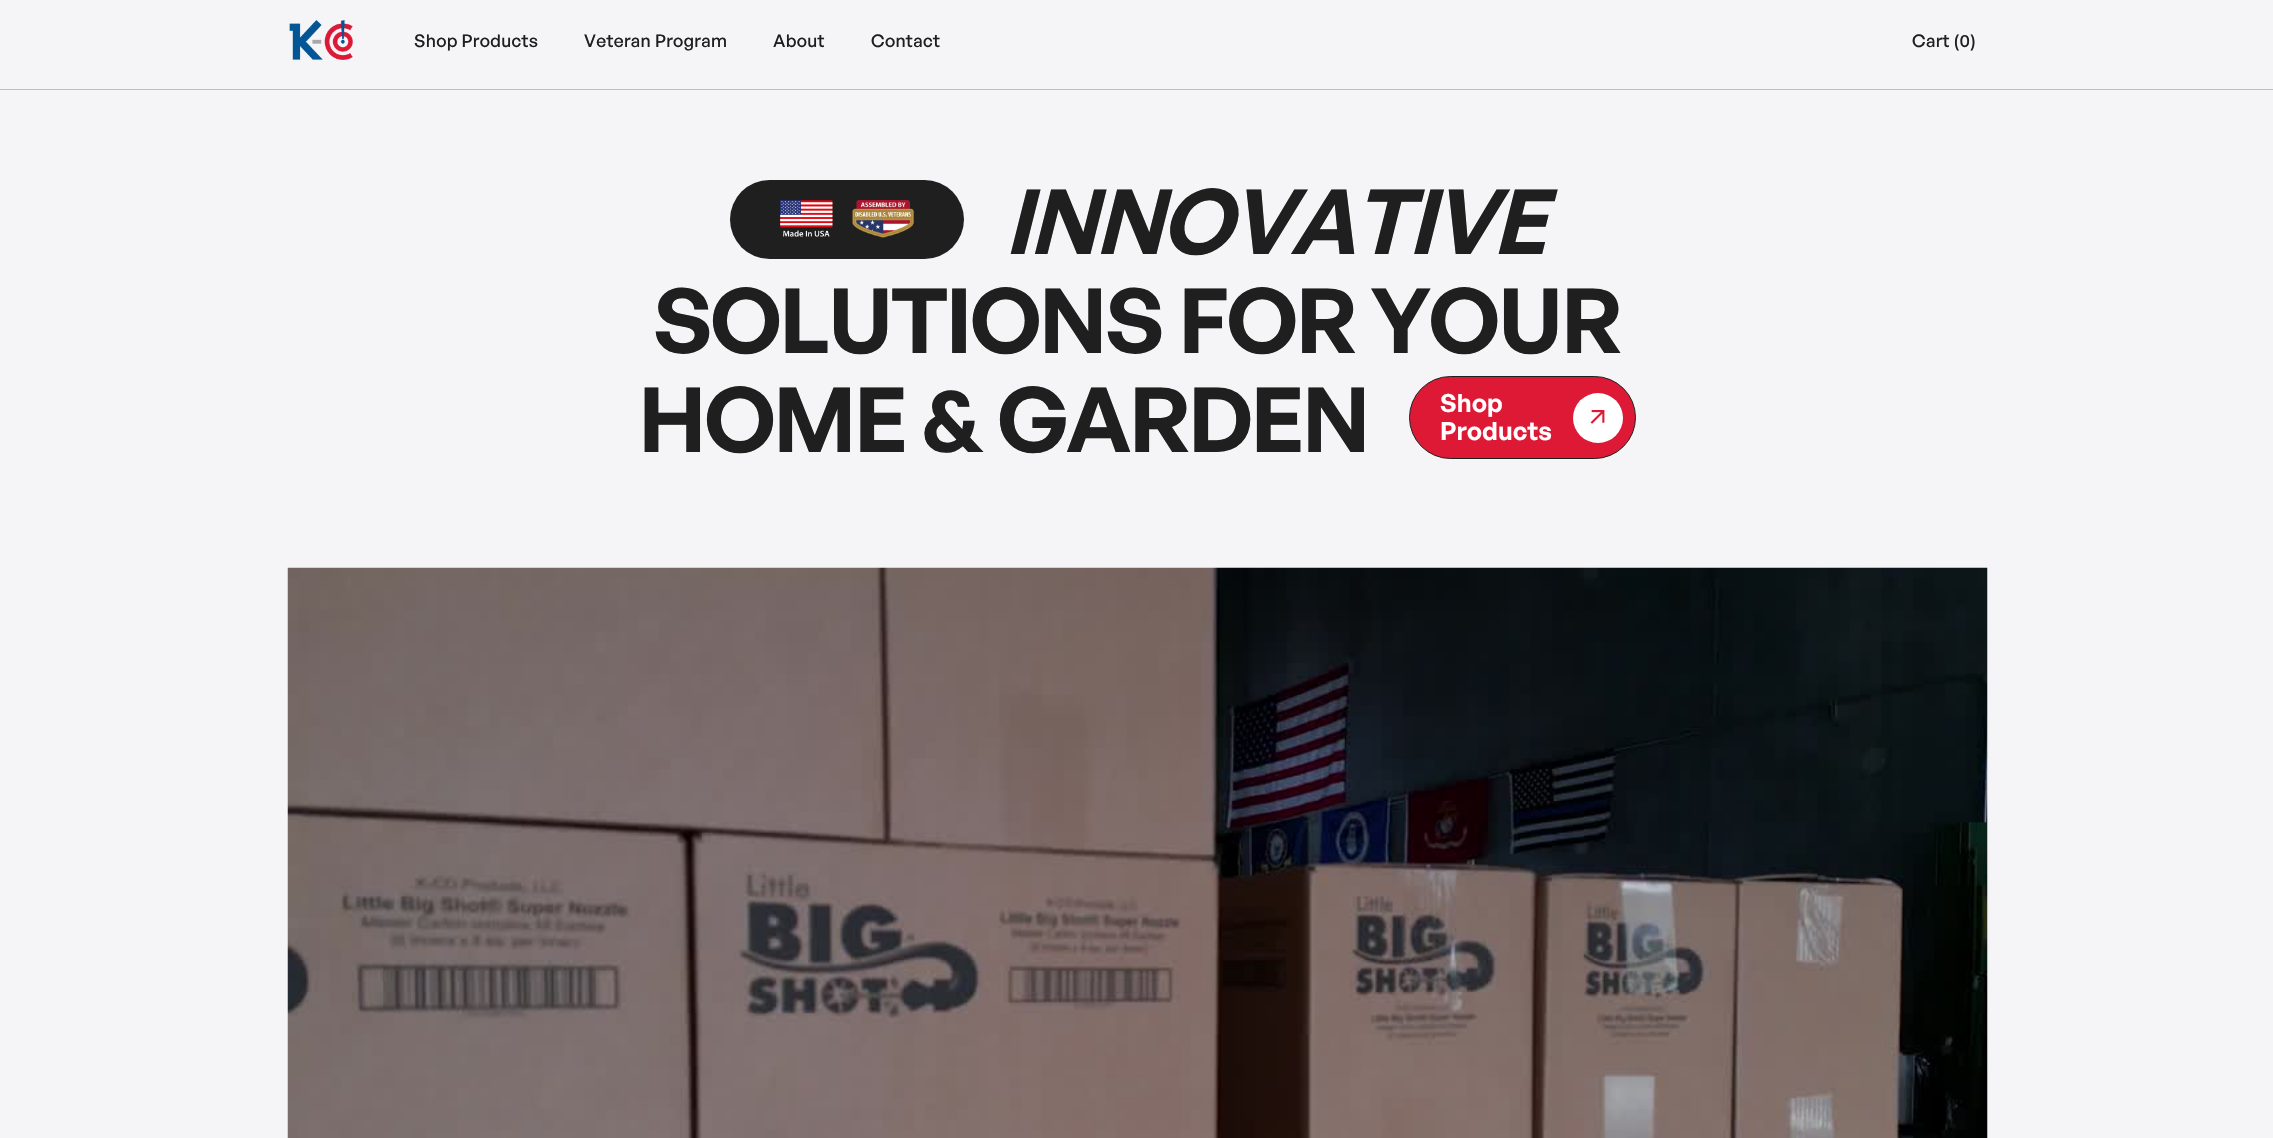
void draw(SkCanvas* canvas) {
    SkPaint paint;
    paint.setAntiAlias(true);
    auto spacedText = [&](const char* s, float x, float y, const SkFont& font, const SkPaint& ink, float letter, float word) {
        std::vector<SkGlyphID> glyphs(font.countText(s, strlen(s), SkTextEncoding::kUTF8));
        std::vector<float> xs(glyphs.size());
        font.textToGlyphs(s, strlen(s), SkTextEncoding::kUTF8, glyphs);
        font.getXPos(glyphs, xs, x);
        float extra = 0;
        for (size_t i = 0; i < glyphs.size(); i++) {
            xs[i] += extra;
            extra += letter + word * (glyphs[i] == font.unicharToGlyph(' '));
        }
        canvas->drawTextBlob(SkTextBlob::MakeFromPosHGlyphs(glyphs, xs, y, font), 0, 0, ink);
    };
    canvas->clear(0xFFF5F5F7);
    paint.setColor(0xFFBDBDBD);
    canvas->drawRect(SkRect::MakeXYWH(0, 89, 2273, 1), paint);
    canvas->drawImageRect(SkImages::DeferredFromEncodedData(SkData::MakeFromFileName("img1.png")), SkRect::MakeXYWH(289, 20, 64, 40), SkSamplingOptions());
    SkFont font1(fontMgr->matchFamilyStyle("General Sans", SkFontStyle(500, SkFontStyle::kNormal_Width, SkFontStyle::kUpright_Slant)), 17.5f);
    font1.setSubpixel(true);
    paint.setColor(0xFF1F1F1F);
    spacedText("Shop Products", 414, 47, font1, paint, 0.3f, 0);
    spacedText("Veteran Program", 584, 47, font1, paint, 0.3f, 0);
    spacedText("About", 773, 47, font1, paint, 0.3f, 0);
    spacedText("Contact", 871, 47, font1, paint, 0.3f, 0);
    spacedText("Cart (0)", 1912, 47, font1, paint, 0.3f, 0);
    canvas->drawRoundRect(SkRect::MakeXYWH(730, 180, 234, 79), 39.5f, 39.5f, paint);
    canvas->drawImageRect(SkImages::DeferredFromEncodedData(SkData::MakeFromFileName("img2.png")), SkRect::MakeXYWH(780, 200, 53, 37), SkSamplingOptions());
    canvas->drawImageRect(SkImages::DeferredFromEncodedData(SkData::MakeFromFileName("img3.png")), SkRect::MakeXYWH(852, 200, 62, 38), SkSamplingOptions());
    SkFont font2(fontMgr->matchFamilyStyle("General Sans", SkFontStyle(600, SkFontStyle::kNormal_Width, SkFontStyle::kItalic_Slant)), 90);
    font2.setSubpixel(true);
    spacedText("INNOVATIVE", 1004, 254, font2, paint, -2.75f, 0);
    SkFont font3(fontMgr->matchFamilyStyle("General Sans", SkFontStyle(600, SkFontStyle::kNormal_Width, SkFontStyle::kUpright_Slant)), 90);
    font3.setSubpixel(true);
    spacedText("SOLUTIONS FOR YOUR", 653, 353, font3, paint, -2.75f, 0);
    spacedText("HOME & GARDEN", 638, 452, font3, paint, -2.75f, 0);
    paint.setColor(0xFFDD1936);
    canvas->drawRoundRect(SkRect::MakeXYWH(1409.5f, 376.5f, 226, 82), 41, 41, paint);
    paint.setStyle(SkPaint::kStroke_Style);
    paint.setStrokeWidth(1);
    paint.setColor(0xFF1F1F1F);
    canvas->drawRoundRect(SkRect::MakeXYWH(1409.5f, 376.5f, 226, 82), 41, 41, paint);
    SkFont font4(fontMgr->matchFamilyStyle("General Sans", SkFontStyle(600, SkFontStyle::kNormal_Width, SkFontStyle::kUpright_Slant)), 25);
    font4.setSubpixel(true);
    paint.setStyle(SkPaint::kFill_Style);
    paint.setColor(0xFFFFFFFF);
    spacedText("Shop", 1440, 412, font4, paint, 0.25f, 0);
    spacedText("Products", 1440, 440, font4, paint, 0.25f, 0);
    canvas->drawCircle(1598, 418, 25, paint);
    canvas->drawImageRect(SkImages::DeferredFromEncodedData(SkData::MakeFromFileName("img4.png")), SkRect::MakeXYWH(1590, 410, 15, 14), SkSamplingOptions());
    canvas->drawImageRect(SkImages::DeferredFromEncodedData(SkData::MakeFromFileName("img5.png")), SkRect::MakeXYWH(287, 567, 1701, 571), SkSamplingOptions());
}
